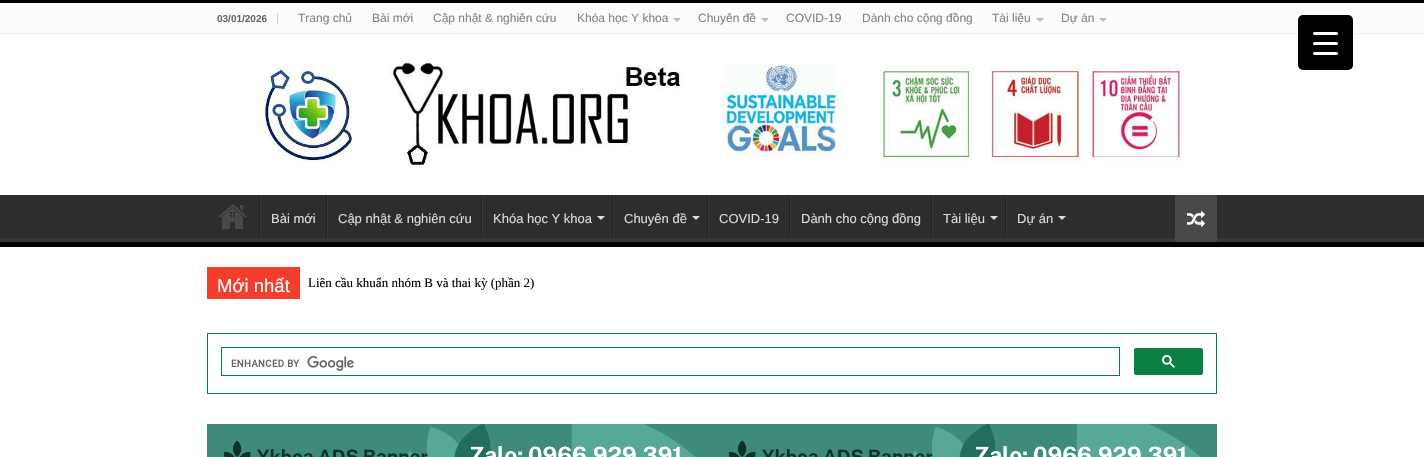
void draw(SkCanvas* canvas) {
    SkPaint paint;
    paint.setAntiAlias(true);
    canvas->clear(0xFFFFFFFF);
    paint.setColor(0xFF000000);
    canvas->drawRect(SkRect::MakeXYWH(0, 0, 1424, 3), paint);
    paint.setColor(0xFFFBFBFB);
    canvas->drawRect(SkRect::MakeXYWH(0, 3, 1424, 30), paint);
    paint.setColor(0xFFECECEC);
    canvas->drawRect(SkRect::MakeXYWH(0, 33, 1424, 1), paint);
    paint.setColor(0xFFCCCCCC);
    canvas->drawRect(SkRect::MakeXYWH(277, 13, 1, 11), paint);
    SkFont font1(fontMgr->matchFamilyStyle("Liberation Sans", SkFontStyle::Bold()), 10);
    font1.setSubpixel(true);
    paint.setColor(0xFF666666);
    canvas->drawString("03/01/2026", 217, 22, font1, paint);
    SkFont font2(fontMgr->matchFamilyStyle("Liberation Sans", SkFontStyle::Normal()), 12);
    font2.setSubpixel(true);
    paint.setColor(0xFF838383);
    canvas->drawString("Trang chủ", 298, 22, font2, paint);
    canvas->drawString("Bài mới", 372, 22, font2, paint);
    canvas->drawString("Cập nhật & nghiên cứu", 433, 22, font2, paint);
    canvas->drawString("Khóa học Y khoa", 577, 22, font2, paint);
    paint.setColor(0xFFBBBBBB);
    canvas->drawPath(SkPathBuilder().moveTo(673, 18).lineTo(681, 18).lineTo(677, 22).close().detach(), paint);
    paint.setColor(0xFF838383);
    canvas->drawString("Chuyên đề", 698, 22, font2, paint);
    paint.setColor(0xFFBBBBBB);
    canvas->drawPath(SkPathBuilder().moveTo(761, 18).lineTo(769, 18).lineTo(765, 22).close().detach(), paint);
    paint.setColor(0xFF838383);
    canvas->drawString("COVID-19", 786, 22, font2, paint);
    canvas->drawString("Dành cho cộng đồng", 862, 22, font2, paint);
    canvas->drawString("Tài liệu", 992, 22, font2, paint);
    paint.setColor(0xFFBBBBBB);
    canvas->drawPath(SkPathBuilder().moveTo(1036, 18).lineTo(1044, 18).lineTo(1040, 22).close().detach(), paint);
    paint.setColor(0xFF838383);
    canvas->drawString("Dự án", 1061, 22, font2, paint);
    paint.setColor(0xFFBBBBBB);
    canvas->drawPath(SkPathBuilder().moveTo(1099, 18).lineTo(1107, 18).lineTo(1103, 22).close().detach(), paint);
    canvas->drawImageRect(SkImages::DeferredFromEncodedData(SkData::MakeFromFileName("img1.png")), SkRect::MakeXYWH(259, 62, 927, 103), SkSamplingOptions());
    paint.setColor(0xFF2D2D2D);
    canvas->drawRect(SkRect::MakeXYWH(0, 195, 1424, 43), paint);
    canvas->save();
    canvas->clipRect(SkRect::MakeXYWH(0, 195, 1424, 47));
    paint.setColor(0xFF393939);
    canvas->drawPath(SkPathBuilder(SkPathFillType::kEvenOdd).moveTo(-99, 96).lineTo(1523, 96).lineTo(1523, 341).lineTo(-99, 341).close().moveTo(-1, 189).lineTo(1423, 189).lineTo(1424, 190).lineTo(1424, 229).cubicTo(1424, 230, 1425, 238, 1423, 238).lineTo(-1, 238).lineTo(-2, 237).lineTo(-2, 189).close().detach(), paint);
    canvas->restore();
    paint.setColor(0xFF000000);
    canvas->drawRect(SkRect::MakeXYWH(0, 242, 1424, 5), paint);
    canvas->drawImageRect(SkImages::DeferredFromEncodedData(SkData::MakeFromFileName("img2.png")), SkRect::MakeXYWH(218, 204, 29, 25), SkSamplingOptions());
    paint.setColor(0xFF222222);
    canvas->drawRect(SkRect::MakeXYWH(259, 195, 1, 42), paint);
    paint.setColor(0xFF383838);
    canvas->drawRect(SkRect::MakeXYWH(260, 195, 1, 42), paint);
    SkFont font3(fontMgr->matchFamilyStyle("Liberation Sans", SkFontStyle::Normal()), 13);
    font3.setSubpixel(true);
    paint.setColor(0xFFDDDDDD);
    canvas->drawString("Bài mới", 271, 223, font3, paint);
    paint.setColor(0xFF222222);
    canvas->drawRect(SkRect::MakeXYWH(326, 195, 1, 42), paint);
    paint.setColor(0xFF383838);
    canvas->drawRect(SkRect::MakeXYWH(327, 195, 1, 42), paint);
    paint.setColor(0xFFDDDDDD);
    canvas->drawString("Cập nhật & nghiên cứu", 338, 223, font3, paint);
    paint.setColor(0xFF222222);
    canvas->drawRect(SkRect::MakeXYWH(481, 195, 1, 42), paint);
    paint.setColor(0xFF383838);
    canvas->drawRect(SkRect::MakeXYWH(482, 195, 1, 42), paint);
    paint.setColor(0xFFDDDDDD);
    canvas->drawString("Khóa học Y khoa", 493, 223, font3, paint);
    canvas->drawPath(SkPathBuilder().moveTo(597, 216).lineTo(605, 216).lineTo(601, 220).close().detach(), paint);
    paint.setColor(0xFF222222);
    canvas->drawRect(SkRect::MakeXYWH(612, 195, 1, 42), paint);
    paint.setColor(0xFF383838);
    canvas->drawRect(SkRect::MakeXYWH(613, 195, 1, 42), paint);
    paint.setColor(0xFFDDDDDD);
    canvas->drawString("Chuyên đề", 624, 223, font3, paint);
    canvas->drawPath(SkPathBuilder().moveTo(692, 216).lineTo(700, 216).lineTo(696, 220).close().detach(), paint);
    paint.setColor(0xFF222222);
    canvas->drawRect(SkRect::MakeXYWH(707, 195, 1, 42), paint);
    paint.setColor(0xFF383838);
    canvas->drawRect(SkRect::MakeXYWH(708, 195, 1, 42), paint);
    paint.setColor(0xFFDDDDDD);
    canvas->drawString("COVID-19", 719, 223, font3, paint);
    paint.setColor(0xFF222222);
    canvas->drawRect(SkRect::MakeXYWH(789, 195, 1, 42), paint);
    paint.setColor(0xFF383838);
    canvas->drawRect(SkRect::MakeXYWH(790, 195, 1, 42), paint);
    paint.setColor(0xFFDDDDDD);
    canvas->drawString("Dành cho cộng đồng", 801, 223, font3, paint);
    paint.setColor(0xFF222222);
    canvas->drawRect(SkRect::MakeXYWH(931, 195, 1, 42), paint);
    paint.setColor(0xFF383838);
    canvas->drawRect(SkRect::MakeXYWH(932, 195, 1, 42), paint);
    paint.setColor(0xFFDDDDDD);
    canvas->drawString("Tài liệu", 943, 223, font3, paint);
    canvas->drawPath(SkPathBuilder().moveTo(990, 216).lineTo(998, 216).lineTo(994, 220).close().detach(), paint);
    paint.setColor(0xFF222222);
    canvas->drawRect(SkRect::MakeXYWH(1005, 195, 1, 42), paint);
    paint.setColor(0xFF383838);
    canvas->drawRect(SkRect::MakeXYWH(1006, 195, 1, 42), paint);
    paint.setColor(0xFFDDDDDD);
    canvas->drawString("Dự án", 1017, 223, font3, paint);
    canvas->drawPath(SkPathBuilder().moveTo(1058, 216).lineTo(1066, 216).lineTo(1062, 220).close().detach(), paint);
    paint.setColor(0xFF494949);
    canvas->drawRect(SkRect::MakeXYWH(1175, 195, 42, 47), paint);
    canvas->drawImageRect(SkImages::DeferredFromEncodedData(SkData::MakeFromFileName("img3.png")), SkRect::MakeXYWH(1187, 210, 18, 17), SkSamplingOptions());
    paint.setColor(0xFFF43D2A);
    canvas->drawRect(SkRect::MakeXYWH(207, 267, 93, 32), paint);
    SkFont font4(fontMgr->matchFamilyStyle("Liberation Sans", SkFontStyle::Normal()), 18.5f);
    font4.setSubpixel(true);
    paint.setColor(0xFFFFFFFF);
    canvas->drawString("Mới nhất", 217, 292, font4, paint);
    SkFont font5(fontMgr->matchFamilyStyle("Liberation Serif", SkFontStyle::Normal()), 13);
    font5.setSubpixel(true);
    paint.setColor(0xFF000000);
    canvas->drawString("Liên cầu khuẩn nhóm B và thai kỳ (phần 2)", 308, 287, font5, paint);
    paint.setStyle(SkPaint::kStroke_Style);
    paint.setStrokeWidth(1);
    paint.setColor(0xFF0B8043);
    canvas->drawRect(SkRect::MakeXYWH(207.5f, 333.5f, 1009, 60), paint);
    canvas->drawRect(SkRect::MakeXYWH(221.5f, 347.5f, 898, 28), paint);
    canvas->drawImageRect(SkImages::DeferredFromEncodedData(SkData::MakeFromFileName("img4.png")), SkRect::MakeXYWH(231, 356, 123, 15), SkSamplingOptions());
    paint.setStyle(SkPaint::kFill_Style);
    canvas->drawRoundRect(SkRect::MakeXYWH(1134.5f, 348.5f, 68, 26), 1.5f, 1.5f, paint);
    paint.setStyle(SkPaint::kStroke_Style);
    canvas->drawRoundRect(SkRect::MakeXYWH(1134.5f, 348.5f, 68, 26), 1.5f, 1.5f, paint);
    canvas->drawImageRect(SkImages::DeferredFromEncodedData(SkData::MakeFromFileName("img5.png")), SkRect::MakeXYWH(1162, 355, 13, 13), SkSamplingOptions());
    canvas->drawImageRect(SkImages::DeferredFromEncodedData(SkData::MakeFromFileName("img6.png")), SkRect::MakeXYWH(207, 424, 505, 33), SkSamplingOptions());
    canvas->drawImageRect(SkImages::DeferredFromEncodedData(SkData::MakeFromFileName("img7.png")), SkRect::MakeXYWH(712, 424, 505, 33), SkSamplingOptions());
    paint.setStyle(SkPaint::kFill_Style);
    paint.setColor(0xFF000000);
    canvas->drawRoundRect(SkRect::MakeXYWH(1298, 15, 55, 55), 5, 5, paint);
    paint.setColor(0xFFFFFFFF);
    canvas->drawRoundRect(SkRect::MakeXYWH(1313, 42, 25, 3), 1.5f, 1.5f, paint);
    canvas->drawRoundRect(SkRect::MakeXYWH(1313, 32, 25, 3), 1.5f, 1.5f, paint);
    canvas->drawRoundRect(SkRect::MakeXYWH(1313, 52, 25, 3), 1.5f, 1.5f, paint);
}
